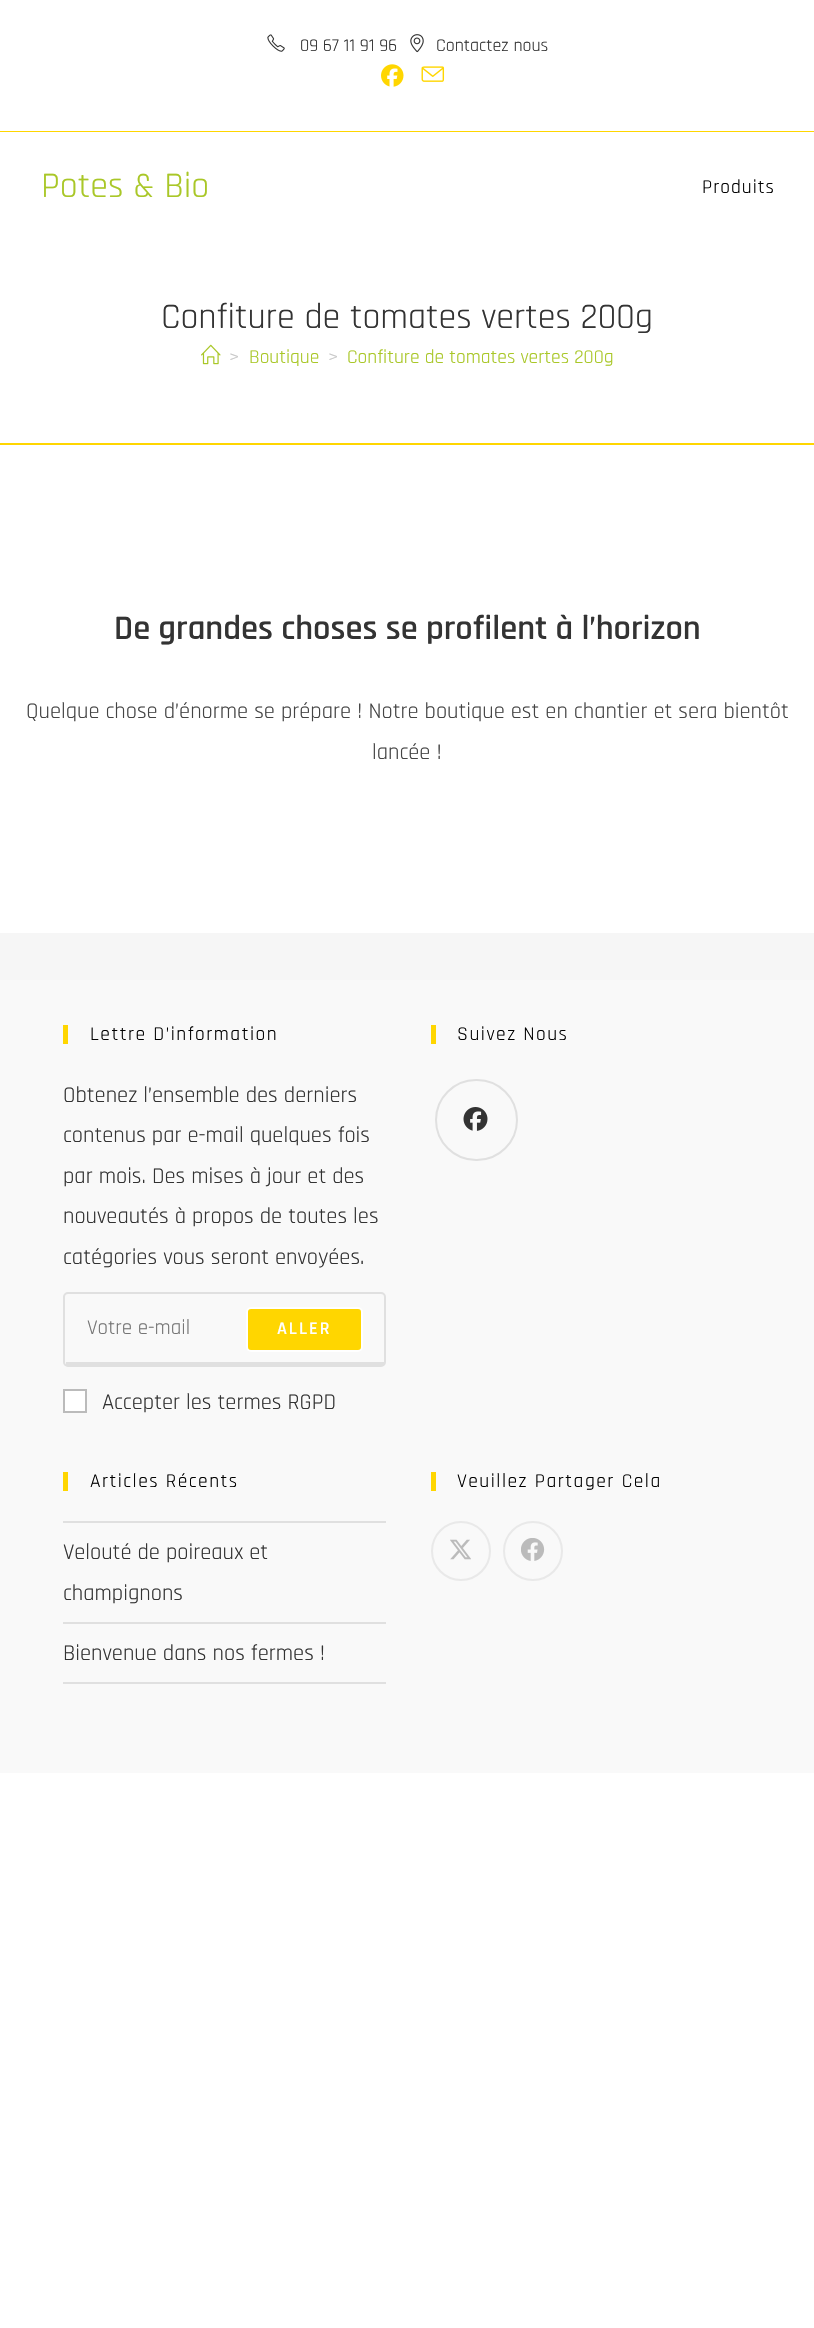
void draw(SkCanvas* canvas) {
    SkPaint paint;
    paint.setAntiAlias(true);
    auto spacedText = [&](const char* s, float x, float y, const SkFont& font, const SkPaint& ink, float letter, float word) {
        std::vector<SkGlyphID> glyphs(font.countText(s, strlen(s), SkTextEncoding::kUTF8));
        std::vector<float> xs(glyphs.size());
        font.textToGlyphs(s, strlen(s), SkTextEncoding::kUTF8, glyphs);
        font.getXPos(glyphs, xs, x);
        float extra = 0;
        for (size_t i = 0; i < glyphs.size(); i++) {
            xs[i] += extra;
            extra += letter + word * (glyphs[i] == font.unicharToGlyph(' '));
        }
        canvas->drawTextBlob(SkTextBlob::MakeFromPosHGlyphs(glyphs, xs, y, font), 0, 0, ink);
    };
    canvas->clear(0xFFFFFFFF);
    paint.setColor(0xFFFFD600);
    canvas->drawRect(SkRect::MakeXYWH(0, 131, 814, 1), paint);
    canvas->drawImageRect(SkImages::DeferredFromEncodedData(SkData::MakeFromFileName("img1.png")), SkRect::MakeXYWH(267, 34, 18, 18), SkSamplingOptions());
    SkFont font1(fontMgr->matchFamilyStyle("Rajdhani", SkFontStyle::Normal()), 18);
    font1.setSubpixel(true);
    paint.setColor(0xFF333333);
    canvas->drawString("09 67 11 91 96", 300, 51, font1, paint);
    canvas->drawImageRect(SkImages::DeferredFromEncodedData(SkData::MakeFromFileName("img2.png")), SkRect::MakeXYWH(410, 34, 14, 19), SkSamplingOptions());
    canvas->drawString("Contactez nous", 436, 51, font1, paint);
    canvas->drawImageRect(SkImages::DeferredFromEncodedData(SkData::MakeFromFileName("img3.png")), SkRect::MakeXYWH(381, 64, 23, 23), SkSamplingOptions());
    canvas->drawImageRect(SkImages::DeferredFromEncodedData(SkData::MakeFromFileName("img4.png")), SkRect::MakeXYWH(421, 66, 24, 16), SkSamplingOptions());
    SkFont font2(fontMgr->matchFamilyStyle("Rajdhani", SkFontStyle::Normal()), 36);
    font2.setSubpixel(true);
    paint.setColor(0xFFA9C727);
    canvas->drawString("Potes & Bio", 41, 197, font2, paint);
    SkFont font3(fontMgr->matchFamilyStyle("Rajdhani", SkFontStyle::Normal()), 19.5f);
    font3.setSubpixel(true);
    paint.setColor(0xFF000000);
    spacedText("Produits", 702, 193, font3, paint, 1, 0);
    paint.setColor(0xFFFFD600);
    canvas->drawRect(SkRect::MakeXYWH(0, 443, 814, 2), paint);
    paint.setColor(0xFF333333);
    canvas->drawString("Confiture de tomates vertes 200g", 161, 328, font2, paint);
    canvas->drawImageRect(SkImages::DeferredFromEncodedData(SkData::MakeFromFileName("img5.png")), SkRect::MakeXYWH(201, 344, 20, 21), SkSamplingOptions());
    paint.setColor(0xFFC6C6C6);
    canvas->drawString(">", 229, 363, font3, paint);
    paint.setColor(0xFFA9C727);
    canvas->drawString("Boutique", 249, 363, font3, paint);
    paint.setColor(0xFFC6C6C6);
    canvas->drawString(">", 328, 363, font3, paint);
    paint.setColor(0xFFA9C727);
    canvas->drawString("Confiture de tomates vertes 200g", 347, 363, font3, paint);
    SkFont font4(fontMgr->matchFamilyStyle("Rajdhani", SkFontStyle(600, SkFontStyle::kNormal_Width, SkFontStyle::kUpright_Slant)), 34.5f);
    font4.setSubpixel(true);
    paint.setColor(0xFF333333);
    canvas->drawString("De grandes choses se profilent à l’horizon", 114, 639, font4, paint);
    SkFont font5(fontMgr->matchFamilyStyle("Rajdhani", SkFontStyle::Normal()), 22.5f);
    font5.setSubpixel(true);
    paint.setColor(0xFF444444);
    canvas->drawString("Quelque chose d’énorme se prépare ! Notre boutique est en chantier et sera bientôt", 26, 718, font5, paint);
    canvas->drawString("lancée !", 372, 759, font5, paint);
    paint.setColor(0xFFF6F6F6);
    canvas->drawRect(SkRect::MakeXYWH(0, 933, 814, 47), paint);
    paint.setColor(0xFFF9F9F9);
    canvas->drawRect(SkRect::MakeXYWH(0, 980, 814, 793), paint);
    paint.setColor(0xFFFFD600);
    canvas->drawRect(SkRect::MakeXYWH(63, 1025, 5, 19), paint);
    paint.setColor(0xFF000000);
    spacedText("Lettre D’information", 90, 1040, font3, paint, 1.5f, 0);
    paint.setColor(0xFF333333);
    canvas->drawString("Obtenez l’ensemble des derniers", 63, 1102, font5, paint);
    canvas->drawString("contenus par e-mail quelques fois", 63, 1142, font5, paint);
    canvas->drawString("par mois. Des mises à jour et des", 63, 1183, font5, paint);
    canvas->drawString("nouveautés à propos de toutes les", 63, 1223, font5, paint);
    canvas->drawString("catégories vous seront envoyées.", 63, 1264, font5, paint);
    paint.setStyle(SkPaint::kStroke_Style);
    paint.setStrokeWidth(2);
    paint.setColor(0xFFE0E0E0);
    canvas->drawRoundRect(SkRect::MakeXYWH(64, 1293, 321, 73), 4, 4, paint);
    paint.setStyle(SkPaint::kFill_Style);
    canvas->drawRect(SkRect::MakeXYWH(66, 1362, 318, 3), paint);
    SkFont font6(fontMgr->matchFamilyStyle("Rajdhani", SkFontStyle::Normal()), 21);
    font6.setSubpixel(true);
    paint.setColor(0xFF757575);
    canvas->drawString("Votre e-mail", 87, 1334, font6, paint);
    paint.setColor(0xFFFFD600);
    canvas->drawRoundRect(SkRect::MakeXYWH(247, 1308, 115, 43), 4, 4, paint);
    paint.setStyle(SkPaint::kStroke_Style);
    paint.setColor(0xFFFFFFFF);
    canvas->drawRoundRect(SkRect::MakeXYWH(247, 1308, 115, 43), 4, 4, paint);
    SkFont font7(fontMgr->matchFamilyStyle("Rajdhani", SkFontStyle(600, SkFontStyle::kNormal_Width, SkFontStyle::kUpright_Slant)), 18);
    font7.setSubpixel(true);
    paint.setStyle(SkPaint::kFill_Style);
    spacedText("ALLER", 277, 1334, font7, paint, 2, 0);
    canvas->drawRect(SkRect::MakeXYWH(64, 1390, 22, 22), paint);
    paint.setStyle(SkPaint::kStroke_Style);
    paint.setColor(0xFFBBBBBB);
    canvas->drawRect(SkRect::MakeXYWH(64, 1390, 22, 22), paint);
    paint.setStyle(SkPaint::kFill_Style);
    paint.setColor(0xFF333333);
    canvas->drawString("Accepter les termes RGPD", 102, 1409, font5, paint);
    paint.setColor(0xFFFFD600);
    canvas->drawRect(SkRect::MakeXYWH(431, 1025, 5, 19), paint);
    paint.setColor(0xFF000000);
    spacedText("Suivez Nous", 457, 1040, font3, paint, 1.5f, 0);
    paint.setStyle(SkPaint::kStroke_Style);
    paint.setColor(0xFFE0E0E0);
    canvas->drawRoundRect(SkRect::MakeXYWH(436, 1080, 81, 80), 40, 40, paint);
    canvas->drawImageRect(SkImages::DeferredFromEncodedData(SkData::MakeFromFileName("img6.png")), SkRect::MakeXYWH(463, 1107, 25, 24), SkSamplingOptions());
    paint.setStyle(SkPaint::kFill_Style);
    paint.setColor(0xFFFFD600);
    canvas->drawRect(SkRect::MakeXYWH(63, 1472, 5, 19), paint);
    paint.setColor(0xFF000000);
    spacedText("Articles Récents", 90, 1487, font3, paint, 1.5f, 0);
    paint.setColor(0xFFE0E0E0);
    canvas->drawRect(SkRect::MakeXYWH(63, 1521, 323, 2), paint);
    canvas->drawRect(SkRect::MakeXYWH(63, 1622, 323, 2), paint);
    paint.setColor(0xFF333333);
    canvas->drawString("Velouté de poireaux et", 63, 1559, font5, paint);
    canvas->drawString("champignons", 63, 1600, font5, paint);
    paint.setColor(0xFFE0E0E0);
    canvas->drawRect(SkRect::MakeXYWH(63, 1682, 323, 2), paint);
    paint.setColor(0xFF333333);
    canvas->drawString("Bienvenue dans nos fermes !", 63, 1660, font5, paint);
    paint.setColor(0xFFFFD600);
    canvas->drawRect(SkRect::MakeXYWH(431, 1472, 5, 19), paint);
    paint.setColor(0xFF000000);
    spacedText("Veuillez Partager Cela", 457, 1487, font3, paint, 1.5f, 0);
    paint.setStyle(SkPaint::kStroke_Style);
    paint.setColor(0xFFE9E9E9);
    canvas->drawCircle(461, 1551, 29, paint);
    canvas->drawImageRect(SkImages::DeferredFromEncodedData(SkData::MakeFromFileName("img7.png")), SkRect::MakeXYWH(450, 1539, 21, 21), SkSamplingOptions());
    canvas->drawCircle(533, 1551, 29, paint);
    canvas->drawImageRect(SkImages::DeferredFromEncodedData(SkData::MakeFromFileName("img8.png")), SkRect::MakeXYWH(521, 1538, 24, 23), SkSamplingOptions());
}
